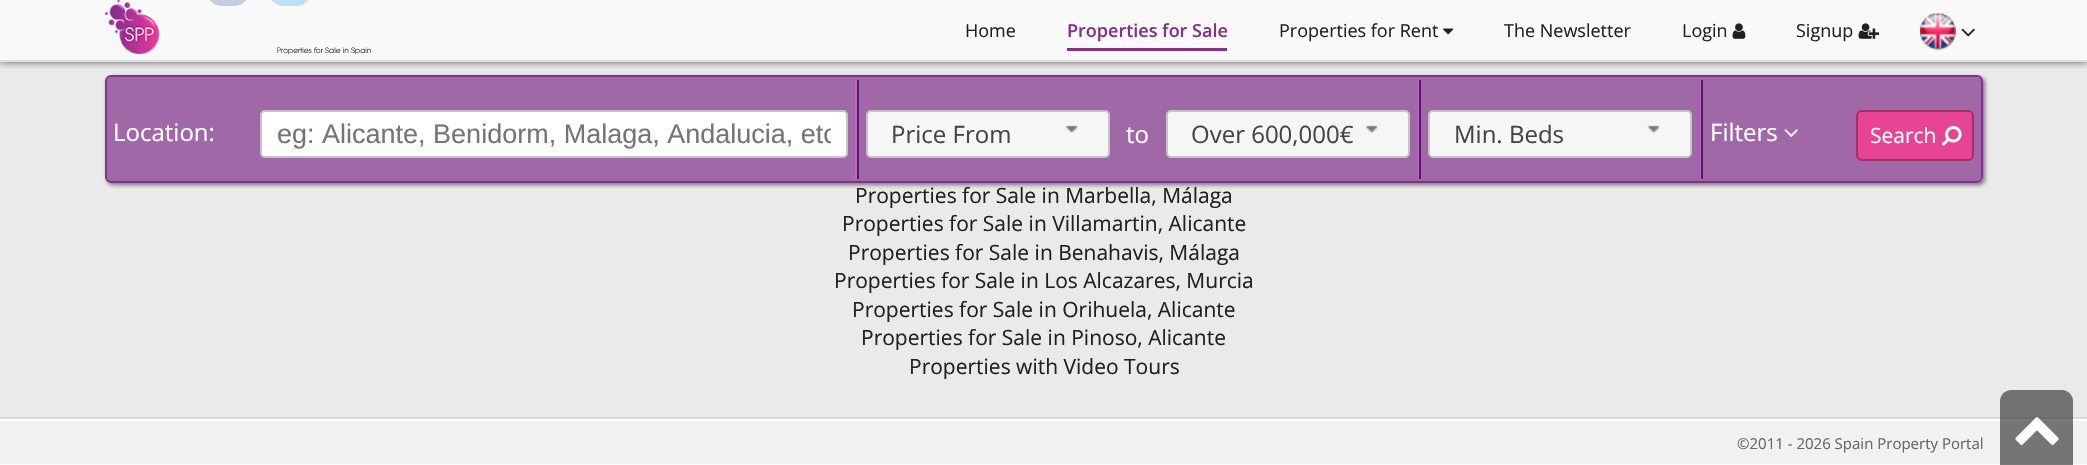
void draw(SkCanvas* canvas) {
    SkPaint paint;
    paint.setAntiAlias(true);
    canvas->clear(0xFFFBFBFB);
    paint.setColor(0xFFEAEAEA);
    canvas->drawRect(SkRect::MakeXYWH(0, 0, 2087, 417), paint);
    paint.setColor(0xFF3B5998);
    canvas->drawRoundRect(SkRect::MakeXYWH(208, -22, 40, 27), 20, 20, paint);
    paint.setStyle(SkPaint::kStroke_Style);
    paint.setStrokeWidth(2);
    canvas->drawRoundRect(SkRect::MakeXYWH(208, -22, 40, 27), 20, 20, paint);
    paint.setStyle(SkPaint::kFill_Style);
    paint.setColor(0xFF1D9BF0);
    canvas->drawRoundRect(SkRect::MakeXYWH(270, -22, 40, 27), 20, 20, paint);
    paint.setStyle(SkPaint::kStroke_Style);
    canvas->drawRoundRect(SkRect::MakeXYWH(270, -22, 40, 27), 20, 20, paint);
    canvas->save();
    canvas->clipRect(SkRect::MakeXYWH(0, 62, 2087, 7));
    paint.setStyle(SkPaint::kFill_Style);
    paint.setColor(0x99000000);
    paint.setMaskFilter(SkMaskFilter::MakeBlur(kNormal_SkBlurStyle, 4));
    canvas->drawRect(SkRect::MakeXYWH(0, 0, 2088, 62), paint);
    paint.setMaskFilter(nullptr);
    canvas->restore();
    paint.setColor(0xB3FFFFFF);
    canvas->drawRect(SkRect::MakeXYWH(0, 0, 2087, 60), paint);
    paint.setColor(0xFFDEDFE0);
    canvas->drawRect(SkRect::MakeXYWH(0, 60, 2087, 2), paint);
    SkFont font1(fontMgr->matchFamilyStyle("Open Sans", SkFontStyle::Normal()), 18);
    font1.setSubpixel(true);
    paint.setColor(0xFF231F20);
    canvas->drawString("Home", 965, 37, font1, paint);
    SkFont font2(fontMgr->matchFamilyStyle("Open Sans", SkFontStyle(600, SkFontStyle::kNormal_Width, SkFontStyle::kUpright_Slant)), 18);
    font2.setSubpixel(true);
    paint.setColor(0xFF81308C);
    canvas->drawString("Properties for Sale", 1067, 37, font2, paint);
    canvas->drawRect(SkRect::MakeXYWH(1067, 48, 160, 3), paint);
    paint.setColor(0xFF231F20);
    canvas->drawString("Properties for Rent", 1279, 37, font1, paint);
    canvas->drawImageRect(SkImages::DeferredFromEncodedData(SkData::MakeFromFileName("img1.png")), SkRect::MakeXYWH(1443, 28, 11, 7), SkSamplingOptions());
    canvas->drawString("The Newsletter", 1504, 37, font1, paint);
    canvas->drawString("Login", 1682, 37, font1, paint);
    canvas->drawImageRect(SkImages::DeferredFromEncodedData(SkData::MakeFromFileName("img2.png")), SkRect::MakeXYWH(1732, 23, 14, 16), SkSamplingOptions());
    canvas->drawString("Signup", 1796, 37, font1, paint);
    canvas->drawImageRect(SkImages::DeferredFromEncodedData(SkData::MakeFromFileName("img3.png")), SkRect::MakeXYWH(1858, 23, 22, 16), SkSamplingOptions());
    canvas->drawImageRect(SkImages::DeferredFromEncodedData(SkData::MakeFromFileName("img4.png")), SkRect::MakeXYWH(1920, 13, 36, 37), SkSamplingOptions());
    canvas->drawImageRect(SkImages::DeferredFromEncodedData(SkData::MakeFromFileName("img5.png")), SkRect::MakeXYWH(1961, 28, 14, 9), SkSamplingOptions());
    canvas->drawImageRect(SkImages::DeferredFromEncodedData(SkData::MakeFromFileName("img6.png")), SkRect::MakeXYWH(105, 0, 54, 54), SkSamplingOptions());
    SkFont font3(fontMgr->matchFamilyStyle("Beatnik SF", SkFontStyle::Normal()), 7.5f);
    font3.setSubpixel(true);
    canvas->drawString("Properties for Sale in Spain", 277, 53, font3, paint);
    canvas->save();
    canvas->clipPath(SkPathBuilder(SkPathFillType::kEvenOdd).moveTo(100, 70).lineTo(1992, 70).lineTo(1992, 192).lineTo(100, 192).close().moveTo(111, 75).lineTo(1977, 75).cubicTo(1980.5f, 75, 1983, 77.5f, 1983, 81).lineTo(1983, 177).cubicTo(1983, 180.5f, 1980.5f, 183, 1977, 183).lineTo(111, 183).cubicTo(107.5f, 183, 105, 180.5f, 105, 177).lineTo(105, 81).cubicTo(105, 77.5f, 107.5f, 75, 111, 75).close().detach(), true);
    paint.setColor(0xCC575757);
    paint.setMaskFilter(SkMaskFilter::MakeBlur(kNormal_SkBlurStyle, 2));
    canvas->drawRoundRect(SkRect::MakeXYWH(107, 77, 1878, 108), 6, 6, paint);
    paint.setMaskFilter(nullptr);
    canvas->restore();
    paint.setColor(0xB381308C);
    canvas->drawRoundRect(SkRect::MakeXYWH(106, 76, 1876, 106), 5, 5, paint);
    paint.setStyle(SkPaint::kStroke_Style);
    paint.setColor(0xFF81308C);
    canvas->drawRoundRect(SkRect::MakeXYWH(106, 76, 1876, 106), 5, 5, paint);
    paint.setStyle(SkPaint::kFill_Style);
    paint.setColor(0x80EB59FF);
    canvas->drawRect(SkRect::MakeXYWH(855, 80, 2, 99), paint);
    SkFont font4(fontMgr->matchFamilyStyle("Open Sans", SkFontStyle::Normal()), 24);
    font4.setSubpixel(true);
    paint.setColor(0xFFFFFFFF);
    canvas->drawString("Location:", 113, 141, font4, paint);
    canvas->drawRoundRect(SkRect::MakeXYWH(261, 111, 586, 46), 4, 4, paint);
    paint.setStyle(SkPaint::kStroke_Style);
    paint.setColor(0xFFC5C5C5);
    canvas->drawRoundRect(SkRect::MakeXYWH(261, 111, 586, 46), 4, 4, paint);
    canvas->save();
    canvas->clipRect(SkRect::MakeXYWH(276, 119, 555, 31));
    SkFont font5(fontMgr->matchFamilyStyle("Liberation Sans", SkFontStyle::Normal()), 27);
    font5.setSubpixel(true);
    paint.setStyle(SkPaint::kFill_Style);
    paint.setColor(0xFF757575);
    canvas->drawString("eg: Alicante, Benidorm, Malaga, Andalucia, etc", 277, 143, font5, paint);
    canvas->restore();
    paint.setColor(0xFFC660D4);
    canvas->drawRect(SkRect::MakeXYWH(1418, 80, 1, 99), paint);
    paint.setColor(0xFF561D5E);
    canvas->drawRect(SkRect::MakeXYWH(857, 80, 2, 99), paint);
    paint.setColor(0xFFF6F6F6);
    canvas->drawRoundRect(SkRect::MakeXYWH(867, 111, 242, 46), 4, 4, paint);
    paint.setStyle(SkPaint::kStroke_Style);
    paint.setColor(0xFFC5C5C5);
    canvas->drawRoundRect(SkRect::MakeXYWH(867, 111, 242, 46), 4, 4, paint);
    paint.setStyle(SkPaint::kFill_Style);
    paint.setColor(0xFF454545);
    canvas->drawString("Price From", 891, 143, font4, paint);
    canvas->drawImageRect(SkImages::DeferredFromEncodedData(SkData::MakeFromFileName("img7.png")), SkRect::MakeXYWH(1065, 125, 13, 8), SkSamplingOptions());
    paint.setColor(0xFFFFFFFF);
    canvas->drawString("to", 1126, 143, font4, paint);
    paint.setColor(0xFFF6F6F6);
    canvas->drawRoundRect(SkRect::MakeXYWH(1167, 111, 242, 46), 4, 4, paint);
    paint.setStyle(SkPaint::kStroke_Style);
    paint.setColor(0xFFC5C5C5);
    canvas->drawRoundRect(SkRect::MakeXYWH(1167, 111, 242, 46), 4, 4, paint);
    paint.setStyle(SkPaint::kFill_Style);
    paint.setColor(0xFF454545);
    canvas->drawString("Over 600,000€", 1191, 143, font4, paint);
    canvas->drawImageRect(SkImages::DeferredFromEncodedData(SkData::MakeFromFileName("img7.png")), SkRect::MakeXYWH(1365, 125, 13, 8), SkSamplingOptions());
    paint.setColor(0xFFC660D4);
    canvas->drawRect(SkRect::MakeXYWH(1700, 80, 1, 99), paint);
    paint.setColor(0xFF561D5E);
    canvas->drawRect(SkRect::MakeXYWH(1419, 80, 2, 99), paint);
    paint.setColor(0xFFF6F6F6);
    canvas->drawRoundRect(SkRect::MakeXYWH(1429, 111, 262, 46), 4, 4, paint);
    paint.setStyle(SkPaint::kStroke_Style);
    paint.setColor(0xFFC5C5C5);
    canvas->drawRoundRect(SkRect::MakeXYWH(1429, 111, 262, 46), 4, 4, paint);
    paint.setStyle(SkPaint::kFill_Style);
    paint.setColor(0xFF454545);
    canvas->drawString("Min. Beds", 1454, 143, font4, paint);
    canvas->drawImageRect(SkImages::DeferredFromEncodedData(SkData::MakeFromFileName("img7.png")), SkRect::MakeXYWH(1647, 125, 13, 8), SkSamplingOptions());
    paint.setColor(0xFF561D5E);
    canvas->drawRect(SkRect::MakeXYWH(1701, 80, 2, 99), paint);
    paint.setColor(0xFFFFFFFF);
    canvas->drawString("Filters", 1710, 141, font4, paint);
    canvas->drawImageRect(SkImages::DeferredFromEncodedData(SkData::MakeFromFileName("img8.png")), SkRect::MakeXYWH(1784, 129, 14, 8), SkSamplingOptions());
    paint.setColor(0xFFE74594);
    canvas->drawRoundRect(SkRect::MakeXYWH(1857, 111, 116, 49), 5, 5, paint);
    paint.setStyle(SkPaint::kStroke_Style);
    paint.setColor(0xFFA42F68);
    canvas->drawRoundRect(SkRect::MakeXYWH(1857, 111, 116, 49), 5, 5, paint);
    SkFont font6(fontMgr->matchFamilyStyle("Open Sans", SkFontStyle::Normal()), 21);
    font6.setSubpixel(true);
    paint.setStyle(SkPaint::kFill_Style);
    paint.setColor(0xFFFFFFFF);
    canvas->drawString("Search", 1870, 143, font6, paint);
    canvas->drawImageRect(SkImages::DeferredFromEncodedData(SkData::MakeFromFileName("img9.png")), SkRect::MakeXYWH(1942, 126, 20, 20), SkSamplingOptions());
    paint.setColor(0xFFDADBDB);
    canvas->drawRect(SkRect::MakeXYWH(0, 417, 2087, 2), paint);
    paint.setColor(0xFF231F20);
    canvas->drawString("Properties for Sale in Marbella, Málaga", 855, 203, font6, paint);
    canvas->drawString("Properties for Sale in Villamartin, Alicante", 842, 231, font6, paint);
    canvas->drawString("Properties for Sale in Benahavis, Málaga", 848, 260, font6, paint);
    canvas->drawString("Properties for Sale in Los Alcazares, Murcia", 834, 288, font6, paint);
    canvas->drawString("Properties for Sale in Orihuela, Alicante", 852, 317, font6, paint);
    canvas->drawString("Properties for Sale in Pinoso, Alicante", 861, 345, font6, paint);
    canvas->drawString("Properties with Video Tours", 909, 374, font6, paint);
    paint.setColor(0xFFF1F1F1);
    canvas->drawRect(SkRect::MakeXYWH(0, 421, 2087, 43), paint);
    paint.setColor(0xFFFFFFFF);
    canvas->drawRect(SkRect::MakeXYWH(0, 419, 2087, 2), paint);
    SkFont font7(fontMgr->matchFamilyStyle("Open Sans", SkFontStyle::Normal()), 15);
    font7.setSubpixel(true);
    paint.setColor(0xFF666666);
    canvas->drawString("©2011 - 2026 Spain Property Portal", 1737, 449, font7, paint);
    paint.setColor(0x99231F20);
    canvas->drawPath(SkPathBuilder().moveTo(2011, 390).lineTo(2062, 390).cubicTo(2068, 390, 2073, 395, 2073, 401).lineTo(2073, 465).lineTo(2000, 465).lineTo(2000, 401).cubicTo(2000, 395, 2005, 390, 2011, 390).close().detach(), paint);
    canvas->drawImageRect(SkImages::DeferredFromEncodedData(SkData::MakeFromFileName("img10.png")), SkRect::MakeXYWH(2015, 417, 44, 28), SkSamplingOptions());
}
